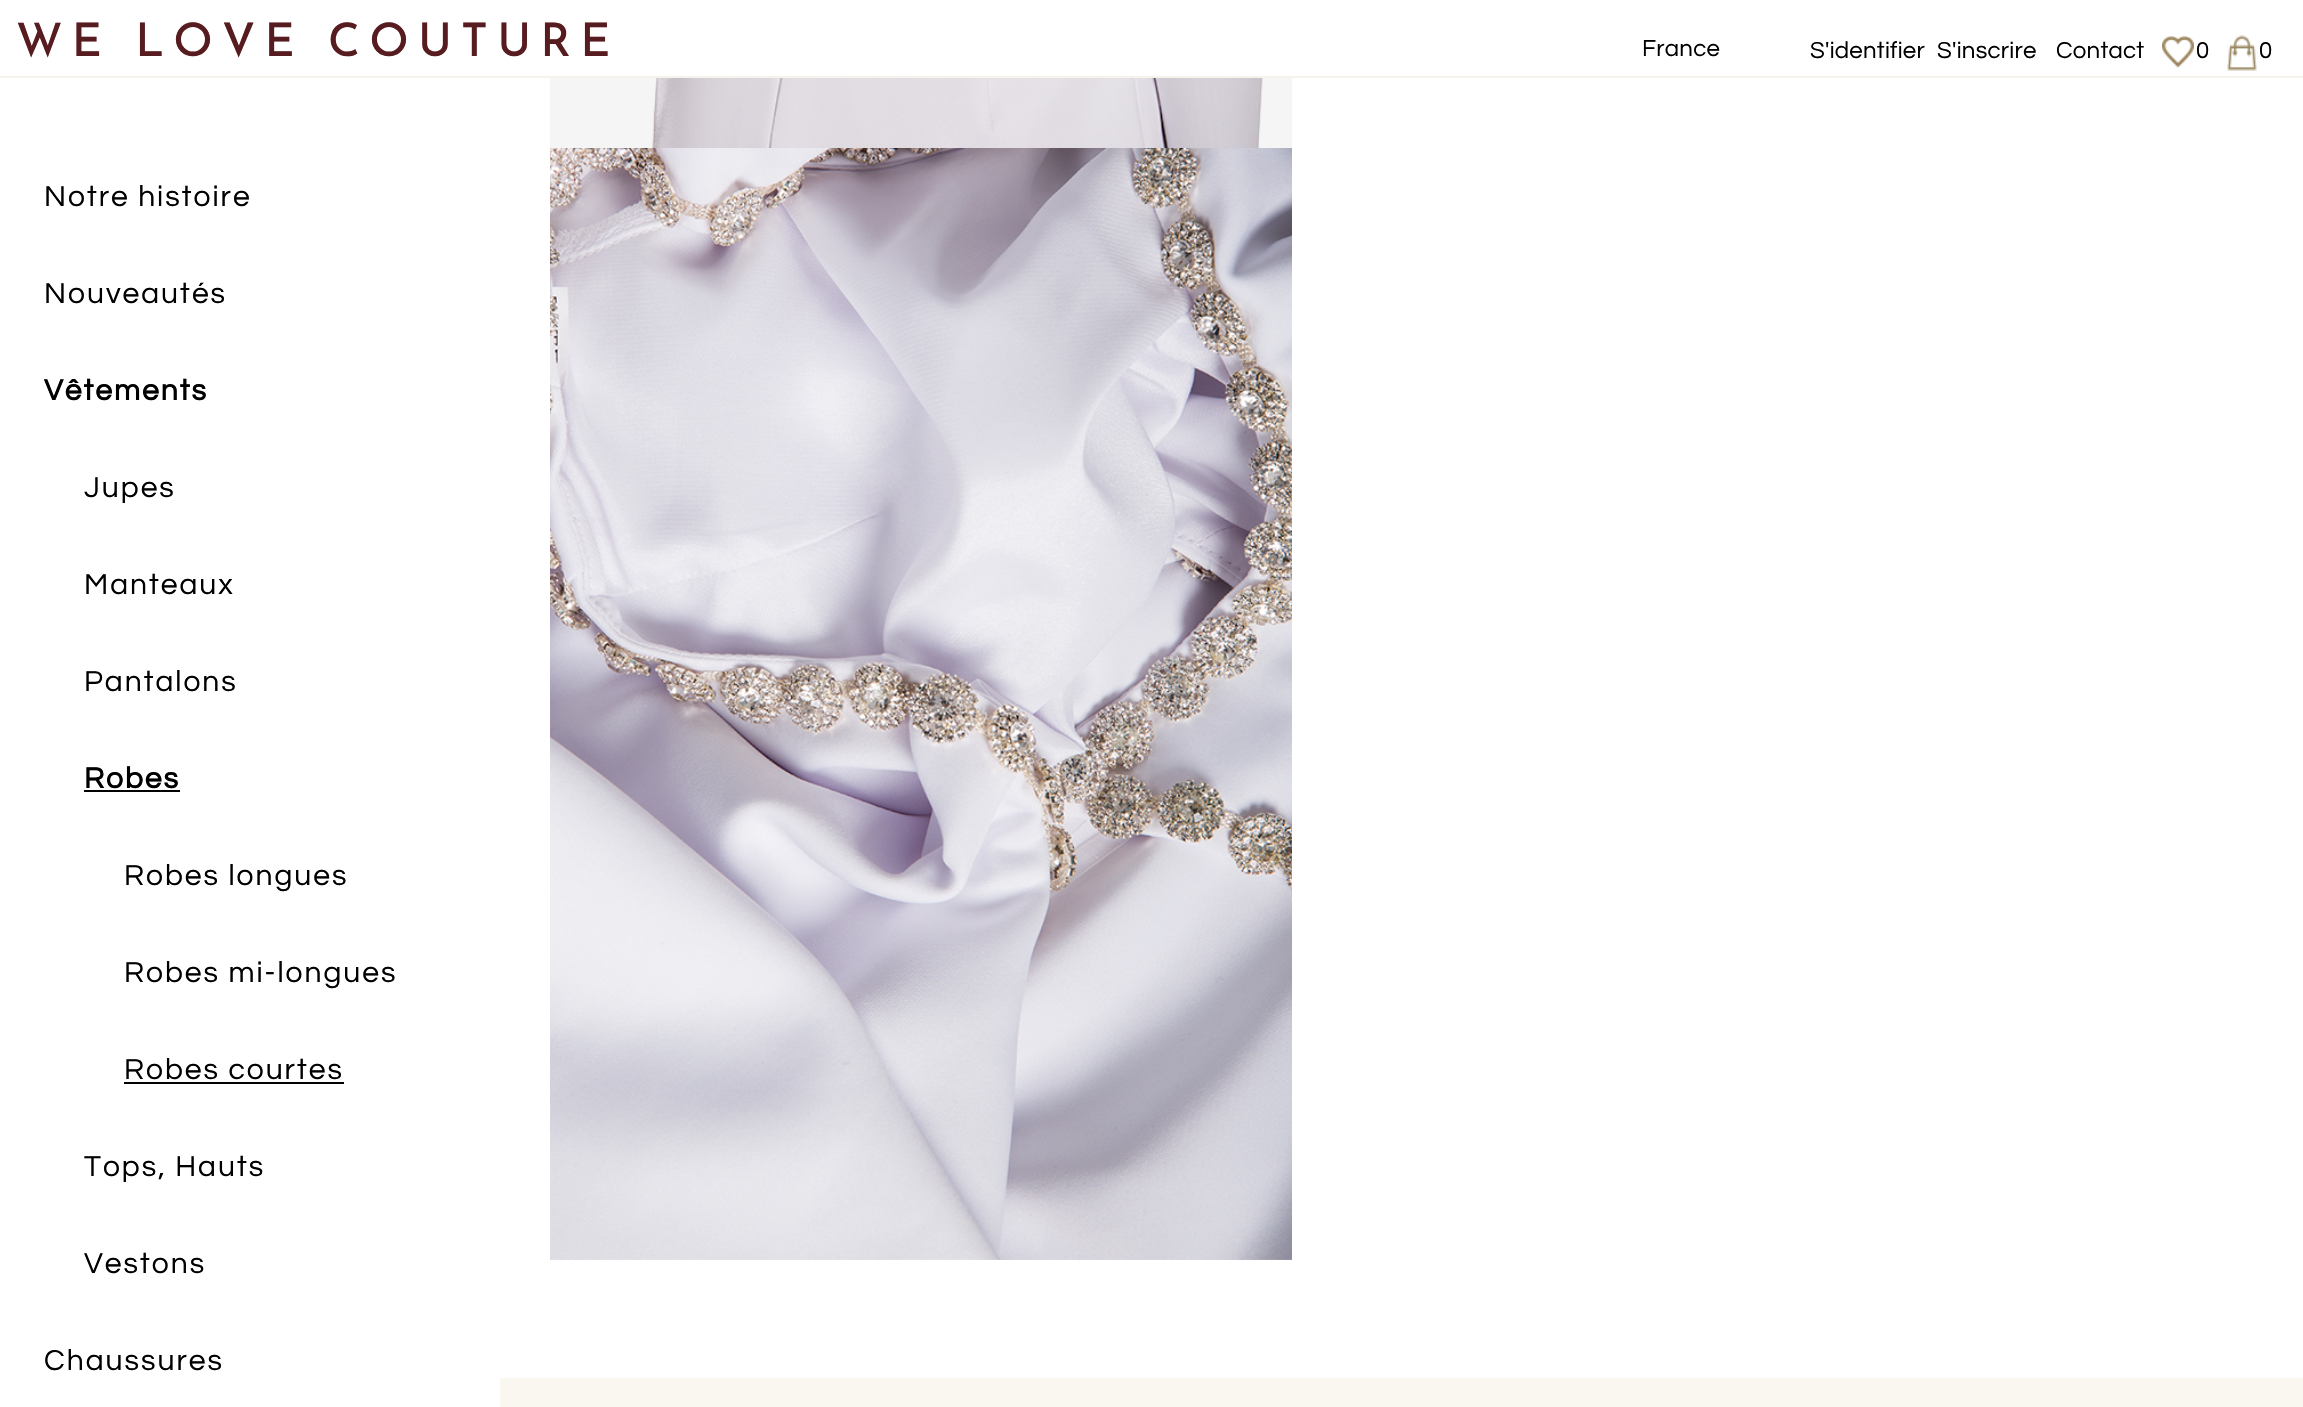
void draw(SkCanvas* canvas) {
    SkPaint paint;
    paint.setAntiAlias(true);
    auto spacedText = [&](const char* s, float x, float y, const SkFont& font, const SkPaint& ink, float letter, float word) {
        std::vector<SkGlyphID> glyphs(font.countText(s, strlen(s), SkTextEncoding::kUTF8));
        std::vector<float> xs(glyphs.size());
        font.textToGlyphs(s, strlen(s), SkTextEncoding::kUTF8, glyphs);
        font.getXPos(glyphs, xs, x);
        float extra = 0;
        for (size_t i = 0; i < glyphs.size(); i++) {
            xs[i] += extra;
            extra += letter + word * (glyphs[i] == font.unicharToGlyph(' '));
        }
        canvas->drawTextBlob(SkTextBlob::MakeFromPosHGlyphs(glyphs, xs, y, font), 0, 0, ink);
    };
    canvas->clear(0xFFFFFFFF);
    paint.setColor(0xFFF6F3EC);
    canvas->drawRect(SkRect::MakeXYWH(0, 76, 2303, 2), paint);
    SkFont font1(fontMgr->matchFamilyStyle("Josefin Sans", SkFontStyle(500, SkFontStyle::kNormal_Width, SkFontStyle::kUpright_Slant)), 46.1f);
    font1.setSubpixel(true);
    paint.setColor(0xFF571C20);
    spacedText("WE LOVE COUTURE", 16, 56, font1, paint, 9.25f, 0);
    SkFont font2(fontMgr->matchFamilyStyle("Questrial", SkFontStyle::Normal()), 24);
    font2.setSubpixel(true);
    paint.setColor(0xFF000000);
    spacedText("France", 1642, 56, font2, paint, 0.25f, 0);
    spacedText("S'identifier", 1810, 58, font2, paint, 0.25f, 0);
    spacedText("S'inscrire", 1937, 58, font2, paint, 0.25f, 0);
    spacedText("Contact", 2056, 58, font2, paint, 0.25f, 0);
    canvas->drawImageRect(SkImages::DeferredFromEncodedData(SkData::MakeFromFileName("img1.png")), SkRect::MakeXYWH(2162, 36, 32, 32), SkSamplingOptions());
    spacedText("0", 2196, 58, font2, paint, 0.25f, 0);
    canvas->drawImageRect(SkImages::DeferredFromEncodedData(SkData::MakeFromFileName("img2.png")), SkRect::MakeXYWH(2227, 35, 30, 36), SkSamplingOptions());
    spacedText("0", 2259, 58, font2, paint, 0.25f, 0);
    SkFont font3(fontMgr->matchFamilyStyle("Questrial", SkFontStyle::Normal()), 30);
    font3.setSubpixel(true);
    spacedText("Notre histoire", 44, 206, font3, paint, 2, 0);
    spacedText("Nouveautés", 44, 303, font3, paint, 2, 0);
    SkFont font4(fontMgr->matchFamilyStyle("Questrial", SkFontStyle::Bold()), 30);
    font4.setSubpixel(true);
    spacedText("Vêtements", 44, 400, font4, paint, 2, 0);
    spacedText("Jupes", 84, 497, font3, paint, 2, 0);
    spacedText("Manteaux", 84, 594, font3, paint, 2, 0);
    spacedText("Pantalons", 84, 691, font3, paint, 2, 0);
    spacedText("Robes", 84, 788, font4, paint, 2, 0);
    canvas->drawRect(SkRect::MakeXYWH(84, 790, 96, 2), paint);
    spacedText("Robes longues", 124, 885, font3, paint, 2, 0);
    spacedText("Robes mi-longues", 124, 982, font3, paint, 2, 0);
    spacedText("Robes courtes", 124, 1079, font3, paint, 2, 0);
    canvas->drawRect(SkRect::MakeXYWH(124, 1082, 220, 2), paint);
    spacedText("Tops, Hauts", 84, 1176, font3, paint, 2, 0);
    spacedText("Vestons", 84, 1273, font3, paint, 2, 0);
    spacedText("Chaussures", 44, 1370, font3, paint, 2, 0);
    canvas->drawImageRect(SkImages::DeferredFromEncodedData(SkData::MakeFromFileName("img3.png")), SkRect::MakeXYWH(550, 78, 742, 70), SkSamplingOptions());
    canvas->drawImageRect(SkImages::DeferredFromEncodedData(SkData::MakeFromFileName("img4.png")), SkRect::MakeXYWH(550, 148, 742, 1112), SkSamplingOptions());
    paint.setColor(0xFFFAF7F0);
    canvas->drawRect(SkRect::MakeXYWH(500, 1378, 1803, 29), paint);
}
